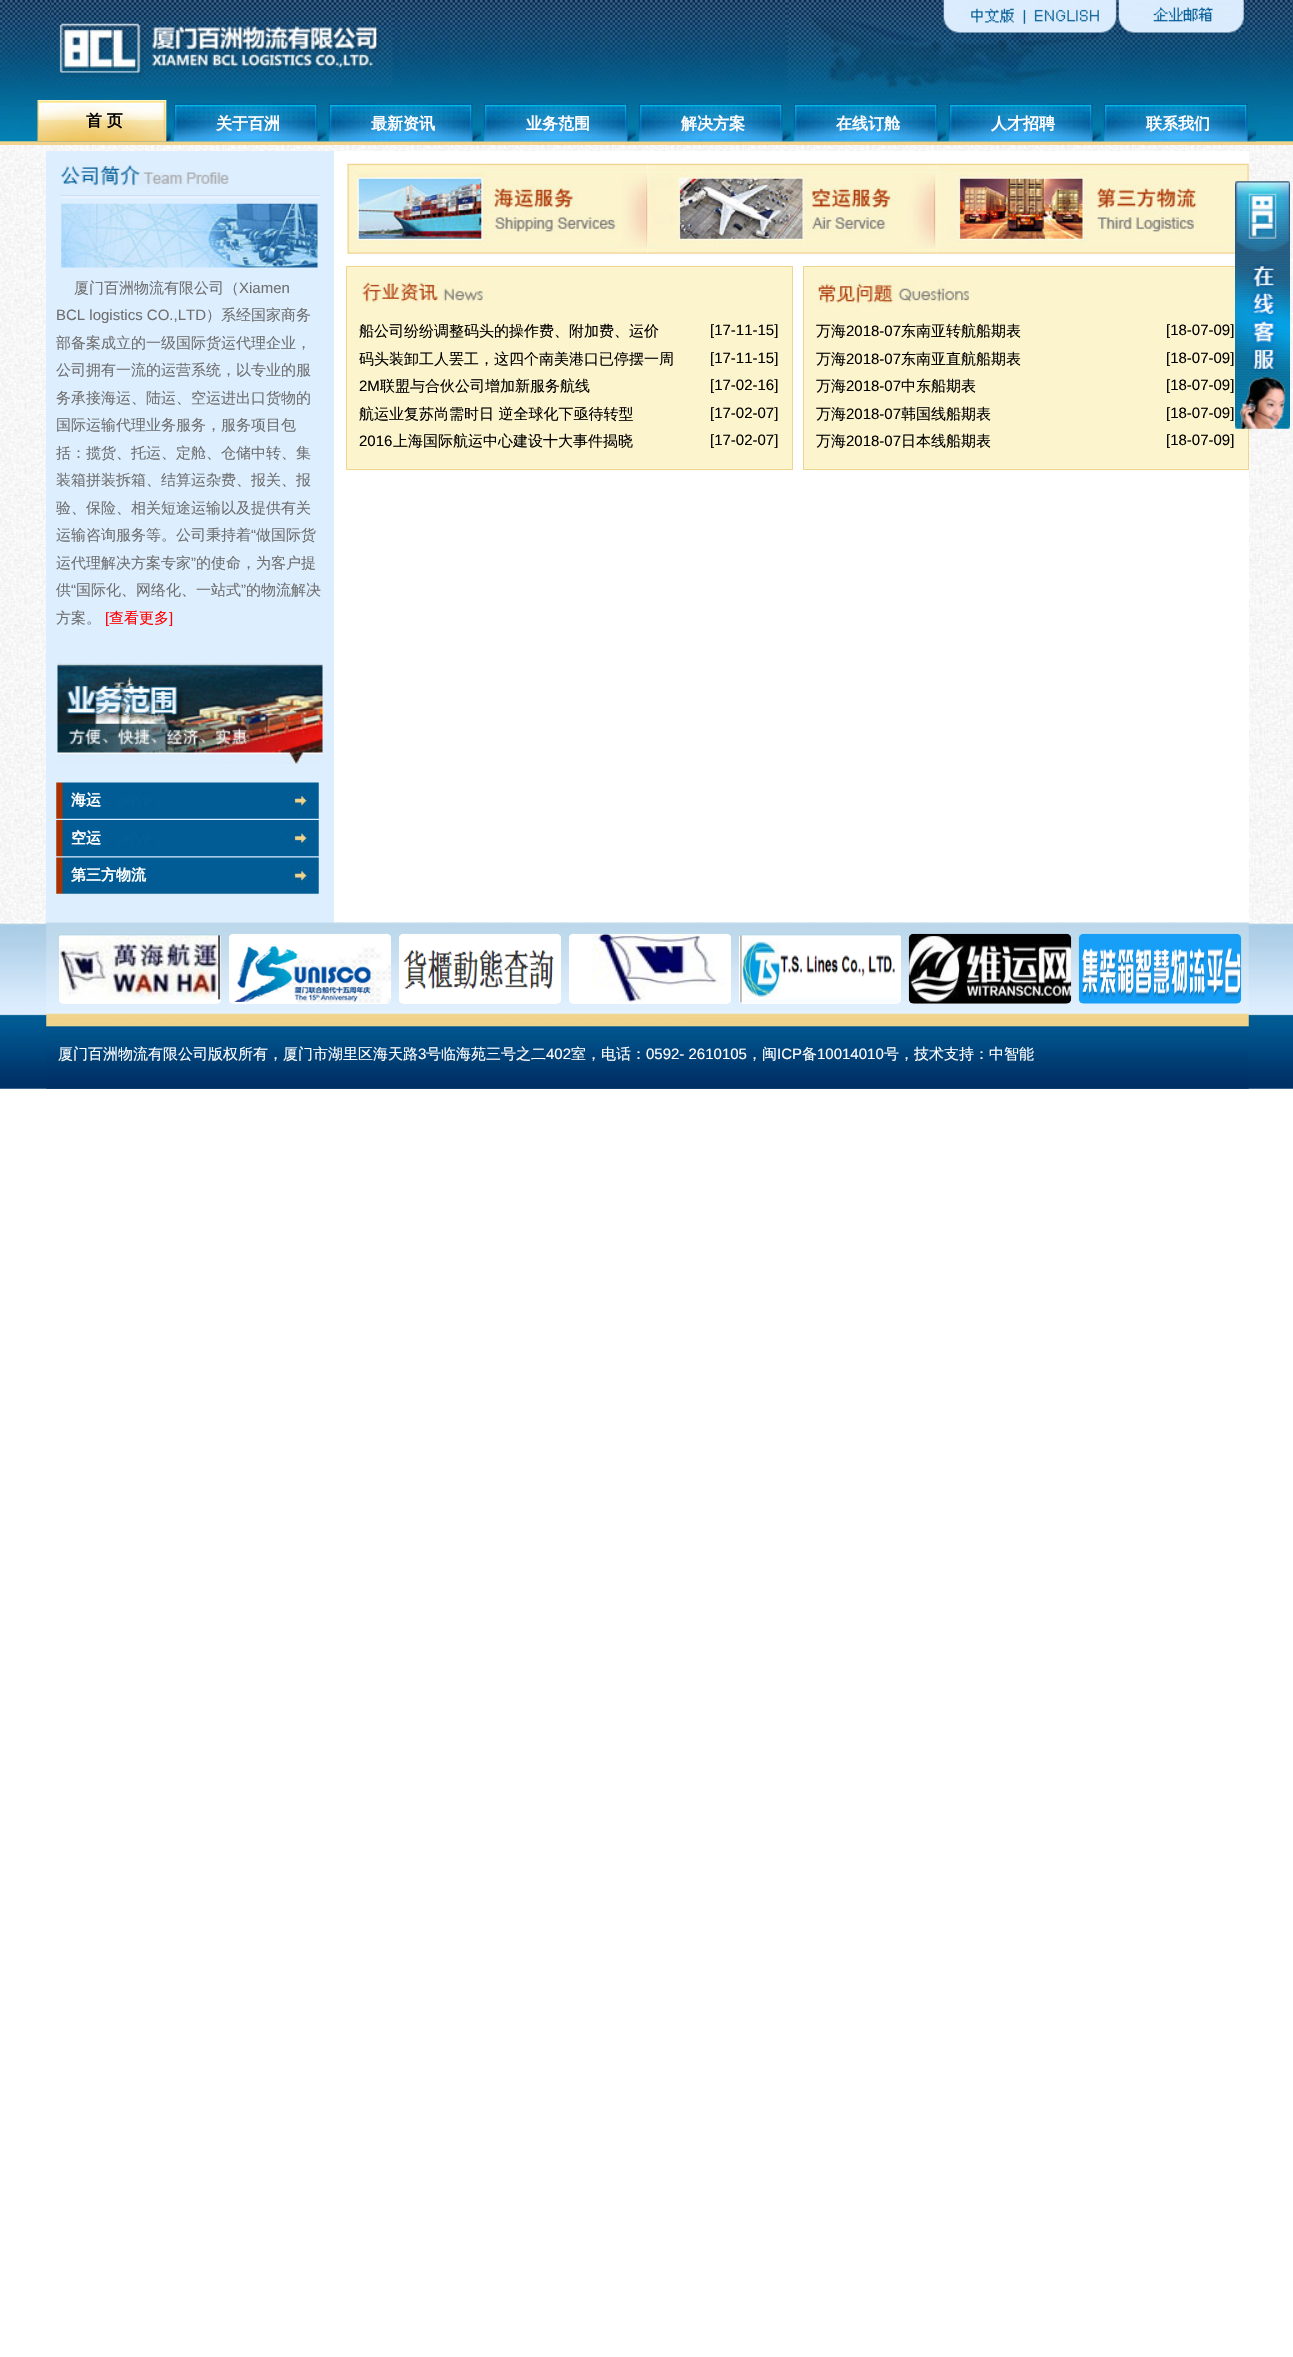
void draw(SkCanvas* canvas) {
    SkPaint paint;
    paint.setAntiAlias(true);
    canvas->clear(0xFFFFFFFF);
    canvas->drawImageRect(SkImages::DeferredFromEncodedData(SkData::MakeFromFileName("img1.png")), SkRect::MakeXYWH(0, 0, 1293, 145), SkSamplingOptions());
    canvas->drawImageRect(SkImages::DeferredFromEncodedData(SkData::MakeFromFileName("img2.png")), SkRect::MakeXYWH(787, 0, 333, 93), SkSamplingOptions());
    canvas->drawImageRect(SkImages::DeferredFromEncodedData(SkData::MakeFromFileName("img3.png")), SkRect::MakeXYWH(50, 0, 343, 86), SkSamplingOptions());
    canvas->drawImageRect(SkImages::DeferredFromEncodedData(SkData::MakeFromFileName("img4.png")), SkRect::MakeXYWH(943, 0, 174, 33), SkSamplingOptions());
    canvas->drawImageRect(SkImages::DeferredFromEncodedData(SkData::MakeFromFileName("img5.png")), SkRect::MakeXYWH(1118, 0, 126, 33), SkSamplingOptions());
    canvas->drawImageRect(SkImages::DeferredFromEncodedData(SkData::MakeFromFileName("img6.png")), SkRect::MakeXYWH(37, 100, 135, 42), SkSamplingOptions());
    SkFont font1(fontMgr->matchFamilyStyle("WenQuanYi Zen Hei", SkFontStyle::Bold()), 16);
    font1.setSubpixel(true);
    paint.setColor(0xFF000000);
    canvas->drawString("首 页", 86, 126, font1, paint);
    canvas->drawImageRect(SkImages::DeferredFromEncodedData(SkData::MakeFromFileName("img7.png")), SkRect::MakeXYWH(171, 103, 156, 39), SkSamplingOptions());
    paint.setColor(0xFFFFFFFF);
    canvas->drawString("关于百洲", 216, 129, font1, paint);
    canvas->drawImageRect(SkImages::DeferredFromEncodedData(SkData::MakeFromFileName("img8.png")), SkRect::MakeXYWH(326, 103, 156, 39), SkSamplingOptions());
    canvas->drawString("最新资讯", 371, 129, font1, paint);
    canvas->drawImageRect(SkImages::DeferredFromEncodedData(SkData::MakeFromFileName("img9.png")), SkRect::MakeXYWH(481, 103, 156, 39), SkSamplingOptions());
    canvas->drawString("业务范围", 526, 129, font1, paint);
    canvas->drawImageRect(SkImages::DeferredFromEncodedData(SkData::MakeFromFileName("img10.png")), SkRect::MakeXYWH(636, 103, 156, 39), SkSamplingOptions());
    canvas->drawString("解决方案", 681, 129, font1, paint);
    canvas->drawImageRect(SkImages::DeferredFromEncodedData(SkData::MakeFromFileName("img11.png")), SkRect::MakeXYWH(791, 103, 156, 39), SkSamplingOptions());
    canvas->drawString("在线订舱", 836, 129, font1, paint);
    canvas->drawImageRect(SkImages::DeferredFromEncodedData(SkData::MakeFromFileName("img12.png")), SkRect::MakeXYWH(946, 103, 156, 39), SkSamplingOptions());
    canvas->drawString("人才招聘", 991, 129, font1, paint);
    canvas->drawImageRect(SkImages::DeferredFromEncodedData(SkData::MakeFromFileName("img13.png")), SkRect::MakeXYWH(1101, 103, 156, 39), SkSamplingOptions());
    canvas->drawString("联系我们", 1146, 129, font1, paint);
    canvas->drawImageRect(SkImages::DeferredFromEncodedData(SkData::MakeFromFileName("img14.png")), SkRect::MakeXYWH(0, 145, 1293, 778), SkSamplingOptions());
    canvas->drawRect(SkRect::MakeXYWH(334, 151, 915, 772), paint);
    canvas->drawImageRect(SkImages::DeferredFromEncodedData(SkData::MakeFromFileName("img26.png")), SkRect::MakeXYWH(0, 922, 1293, 167), SkSamplingOptions());
    paint.setColor(0xFFDDEEFF);
    canvas->drawRect(SkRect::MakeXYWH(46, 151, 288, 772), paint);
    canvas->drawImageRect(SkImages::DeferredFromEncodedData(SkData::MakeFromFileName("img15.png")), SkRect::MakeXYWH(59, 161, 261, 37), SkSamplingOptions());
    canvas->drawImageRect(SkImages::DeferredFromEncodedData(SkData::MakeFromFileName("img16.png")), SkRect::MakeXYWH(61, 203, 257, 65), SkSamplingOptions());
    SkFont font2(fontMgr->matchFamilyStyle("WenQuanYi Zen Hei", SkFontStyle(500, SkFontStyle::kNormal_Width, SkFontStyle::kUpright_Slant)), 15);
    font2.setSubpixel(true);
    paint.setColor(0xFF707070);
    canvas->drawString("厦门百洲物流有限公司（", 74, 293, font2, paint);
    SkFont font3(fontMgr->matchFamilyStyle("Liberation Sans", SkFontStyle::Normal()), 15);
    font3.setSubpixel(true);
    canvas->drawString("Xiamen", 239, 293, font3, paint);
    canvas->drawString("BCL logistics CO.,LTD", 56, 320, font3, paint);
    canvas->drawString("）系经国家商务", 206, 320, font2, paint);
    canvas->drawString("部备案成立的一级国际货运代理企业，", 56, 348, font2, paint);
    canvas->drawString("公司拥有一流的运营系统，以专业的服", 56, 375, font2, paint);
    canvas->drawString("务承接海运、陆运、空运进出口货物的", 56, 403, font2, paint);
    canvas->drawString("国际运输代理业务服务，服务项目包", 56, 430, font2, paint);
    canvas->drawString("括：揽货、托运、定舱、仓储中转、集", 56, 458, font2, paint);
    canvas->drawString("装箱拼装拆箱、结算运杂费、报关、报", 56, 485, font2, paint);
    canvas->drawString("验、保险、相关短途运输以及提供有关", 56, 513, font2, paint);
    canvas->drawString("运输咨询服务等。公司秉持着", 56, 540, font2, paint);
    canvas->drawString("“", 251, 540, font3, paint);
    canvas->drawString("做国际货", 256, 540, font2, paint);
    canvas->drawString("运代理解决方案专家", 56, 568, font2, paint);
    canvas->drawString("”", 191, 568, font3, paint);
    canvas->drawString("的使命，为客户提", 196, 568, font2, paint);
    canvas->drawString("供", 56, 595, font2, paint);
    canvas->drawString("“", 71, 595, font3, paint);
    canvas->drawString("国际化、网络化、一站式", 76, 595, font2, paint);
    canvas->drawString("”", 241, 595, font3, paint);
    canvas->drawString("的物流解决", 246, 595, font2, paint);
    canvas->drawString("方案。", 56, 623, font2, paint);
    paint.setColor(0xFFFF0000);
    canvas->drawString("[", 105, 623, font3, paint);
    canvas->drawString("查看更多", 109, 623, font2, paint);
    canvas->drawString("]", 169, 623, font3, paint);
    canvas->drawImageRect(SkImages::DeferredFromEncodedData(SkData::MakeFromFileName("img17.png")), SkRect::MakeXYWH(57, 662, 266, 102), SkSamplingOptions());
    canvas->drawImageRect(SkImages::DeferredFromEncodedData(SkData::MakeFromFileName("img18.png")), SkRect::MakeXYWH(56, 782, 263, 37), SkSamplingOptions());
    SkFont font4(fontMgr->matchFamilyStyle("WenQuanYi Zen Hei", SkFontStyle::Bold()), 15);
    font4.setSubpixel(true);
    paint.setColor(0xFFFFFFFF);
    canvas->drawString("海运", 71, 805, font4, paint);
    canvas->drawImageRect(SkImages::DeferredFromEncodedData(SkData::MakeFromFileName("img19.png")), SkRect::MakeXYWH(56, 820, 263, 37), SkSamplingOptions());
    canvas->drawString("空运", 71, 843, font4, paint);
    canvas->drawImageRect(SkImages::DeferredFromEncodedData(SkData::MakeFromFileName("img18.png")), SkRect::MakeXYWH(56, 857, 263, 37), SkSamplingOptions());
    canvas->drawString("第三方物流", 71, 880, font4, paint);
    canvas->drawImageRect(SkImages::DeferredFromEncodedData(SkData::MakeFromFileName("img20.png")), SkRect::MakeXYWH(347, 163, 301, 91), SkSamplingOptions());
    canvas->drawImageRect(SkImages::DeferredFromEncodedData(SkData::MakeFromFileName("img21.png")), SkRect::MakeXYWH(647, 163, 291, 91), SkSamplingOptions());
    canvas->drawImageRect(SkImages::DeferredFromEncodedData(SkData::MakeFromFileName("img22.png")), SkRect::MakeXYWH(937, 163, 312, 91), SkSamplingOptions());
    paint.setColor(0xFFFCF4CC);
    canvas->drawRect(SkRect::MakeXYWH(346.5f, 266.5f, 446, 203), paint);
    paint.setStyle(SkPaint::kStroke_Style);
    paint.setStrokeWidth(1);
    paint.setColor(0xFFF1D48E);
    canvas->drawRect(SkRect::MakeXYWH(346.5f, 266.5f, 446, 203), paint);
    canvas->drawImageRect(SkImages::DeferredFromEncodedData(SkData::MakeFromFileName("img23.png")), SkRect::MakeXYWH(360, 280, 130, 24), SkSamplingOptions());
    paint.setStyle(SkPaint::kFill_Style);
    paint.setColor(0xFF000000);
    canvas->drawString("船公司纷纷调整码头的操作费、附加费、运价", 359, 336, font2, paint);
    canvas->drawString("[17-11-15]", 710, 335, font3, paint);
    canvas->drawString("码头装卸工人罢工，这四个南美港口已停摆一周", 359, 364, font2, paint);
    canvas->drawString("[17-11-15]", 710, 363, font3, paint);
    canvas->drawString("2M", 359, 391, font3, paint);
    canvas->drawString("联盟与合伙公司增加新服务航线", 380, 391, font2, paint);
    canvas->drawString("[17-02-16]", 710, 390, font3, paint);
    canvas->drawString("航运业复苏尚需时日 逆全球化下亟待转型", 359, 419, font2, paint);
    canvas->drawString("[17-02-07]", 710, 418, font3, paint);
    canvas->drawString("2016", 359, 446, font3, paint);
    canvas->drawString("上海国际航运中心建设十大事件揭晓", 393, 446, font2, paint);
    canvas->drawString("[17-02-07]", 710, 445, font3, paint);
    paint.setColor(0xFFFCF4CC);
    canvas->drawRect(SkRect::MakeXYWH(803.5f, 266.5f, 445, 203), paint);
    paint.setStyle(SkPaint::kStroke_Style);
    paint.setColor(0xFFF1D48E);
    canvas->drawRect(SkRect::MakeXYWH(803.5f, 266.5f, 445, 203), paint);
    canvas->drawImageRect(SkImages::DeferredFromEncodedData(SkData::MakeFromFileName("img24.png")), SkRect::MakeXYWH(816, 280, 160, 26), SkSamplingOptions());
    paint.setStyle(SkPaint::kFill_Style);
    paint.setColor(0xFF000000);
    canvas->drawString("万海", 816, 336, font2, paint);
    canvas->drawString("2018-07", 846, 336, font3, paint);
    canvas->drawString("东南亚转航船期表", 901, 336, font2, paint);
    canvas->drawString("[18-07-09]", 1166, 335, font3, paint);
    canvas->drawString("万海", 816, 364, font2, paint);
    canvas->drawString("2018-07", 846, 364, font3, paint);
    canvas->drawString("东南亚直航船期表", 901, 364, font2, paint);
    canvas->drawString("[18-07-09]", 1166, 363, font3, paint);
    canvas->drawString("万海", 816, 391, font2, paint);
    canvas->drawString("2018-07", 846, 391, font3, paint);
    canvas->drawString("中东船期表", 901, 391, font2, paint);
    canvas->drawString("[18-07-09]", 1166, 390, font3, paint);
    canvas->drawString("万海", 816, 419, font2, paint);
    canvas->drawString("2018-07", 846, 419, font3, paint);
    canvas->drawString("韩国线船期表", 901, 419, font2, paint);
    canvas->drawString("[18-07-09]", 1166, 418, font3, paint);
    canvas->drawString("万海", 816, 446, font2, paint);
    canvas->drawString("2018-07", 846, 446, font3, paint);
    canvas->drawString("日本线船期表", 901, 446, font2, paint);
    canvas->drawString("[18-07-09]", 1166, 445, font3, paint);
    canvas->drawImageRect(SkImages::DeferredFromEncodedData(SkData::MakeFromFileName("img25.png")), SkRect::MakeXYWH(1235, 181, 55, 248), SkSamplingOptions());
    canvas->drawImageRect(SkImages::DeferredFromEncodedData(SkData::MakeFromFileName("img27.png")), SkRect::MakeXYWH(46, 922, 1203, 167), SkSamplingOptions());
    paint.setColor(0xFFFFFFFF);
    canvas->drawRoundRect(SkRect::MakeXYWH(59, 934, 162, 70), 5, 5, paint);
    canvas->drawImageRect(SkImages::DeferredFromEncodedData(SkData::MakeFromFileName("img28.png")), SkRect::MakeXYWH(59, 934, 162, 69), SkSamplingOptions());
    canvas->drawRoundRect(SkRect::MakeXYWH(229, 934, 162, 70), 5, 5, paint);
    canvas->drawImageRect(SkImages::DeferredFromEncodedData(SkData::MakeFromFileName("img29.png")), SkRect::MakeXYWH(229, 933, 162, 70), SkSamplingOptions());
    canvas->drawRoundRect(SkRect::MakeXYWH(399, 934, 162, 70), 5, 5, paint);
    canvas->drawImageRect(SkImages::DeferredFromEncodedData(SkData::MakeFromFileName("img30.png")), SkRect::MakeXYWH(399, 933, 162, 70), SkSamplingOptions());
    canvas->drawRoundRect(SkRect::MakeXYWH(569, 934, 162, 70), 5, 5, paint);
    canvas->drawImageRect(SkImages::DeferredFromEncodedData(SkData::MakeFromFileName("img31.png")), SkRect::MakeXYWH(569, 933, 162, 70), SkSamplingOptions());
    canvas->drawRoundRect(SkRect::MakeXYWH(739, 934, 162, 70), 5, 5, paint);
    canvas->drawImageRect(SkImages::DeferredFromEncodedData(SkData::MakeFromFileName("img32.png")), SkRect::MakeXYWH(739, 934, 162, 69), SkSamplingOptions());
    canvas->drawRoundRect(SkRect::MakeXYWH(909, 934, 162, 70), 5, 5, paint);
    canvas->drawImageRect(SkImages::DeferredFromEncodedData(SkData::MakeFromFileName("img33.png")), SkRect::MakeXYWH(908, 933, 164, 71), SkSamplingOptions());
    canvas->drawRoundRect(SkRect::MakeXYWH(1079, 934, 162, 70), 5, 5, paint);
    canvas->drawImageRect(SkImages::DeferredFromEncodedData(SkData::MakeFromFileName("img34.png")), SkRect::MakeXYWH(1078, 933, 164, 71), SkSamplingOptions());
    canvas->drawString("厦门百洲物流有限公司版权所有，厦门市湖里区海天路", 58, 1059, font2, paint);
    canvas->drawString("3", 418, 1059, font3, paint);
    canvas->drawString("号临海苑三号之二", 426, 1059, font2, paint);
    canvas->drawString("402", 546, 1059, font3, paint);
    canvas->drawString("室，电话：", 571, 1059, font2, paint);
    canvas->drawString("0592- 2610105", 646, 1059, font3, paint);
    canvas->drawString("，闽", 747, 1059, font2, paint);
    canvas->drawString("ICP", 777, 1059, font3, paint);
    canvas->drawString("备", 802, 1059, font2, paint);
    canvas->drawString("10014010", 817, 1059, font3, paint);
    canvas->drawString("号，技术支持：中智能", 884, 1059, font2, paint);
}
